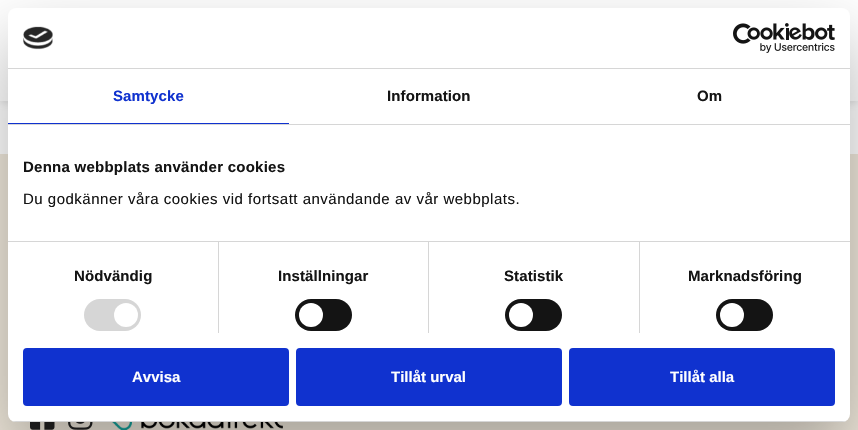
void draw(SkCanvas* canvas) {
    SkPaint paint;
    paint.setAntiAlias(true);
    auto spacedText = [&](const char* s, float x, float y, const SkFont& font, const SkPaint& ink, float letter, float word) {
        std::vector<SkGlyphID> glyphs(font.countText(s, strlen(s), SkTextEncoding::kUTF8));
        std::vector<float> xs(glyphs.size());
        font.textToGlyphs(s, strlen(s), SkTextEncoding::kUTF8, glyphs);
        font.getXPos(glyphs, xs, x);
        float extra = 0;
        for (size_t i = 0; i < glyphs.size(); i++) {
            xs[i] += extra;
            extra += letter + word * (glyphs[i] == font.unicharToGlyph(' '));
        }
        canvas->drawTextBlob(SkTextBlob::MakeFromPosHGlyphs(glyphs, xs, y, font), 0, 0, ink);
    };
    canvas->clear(0xFFFFFFFF);
    paint.setColor(0x33636363);
    paint.setMaskFilter(SkMaskFilter::MakeBlur(kNormal_SkBlurStyle, 4));
    canvas->drawRect(SkRect::MakeXYWH(0, 2, 858, 101), paint);
    paint.setMaskFilter(nullptr);
    paint.setColor(0xFFFFFFFF);
    canvas->drawRect(SkRect::MakeXYWH(0, 0, 858, 101), paint);
    paint.setColor(0xFFEFE8DB);
    canvas->drawRect(SkRect::MakeXYWH(0, 154, 858, 276), paint);
    canvas->drawImageRect(SkImages::DeferredFromEncodedData(SkData::MakeFromFileName("img1.png")), SkRect::MakeXYWH(30, 422, 25, 8), SkSamplingOptions());
    canvas->drawImageRect(SkImages::DeferredFromEncodedData(SkData::MakeFromFileName("img2.png")), SkRect::MakeXYWH(68, 422, 25, 8), SkSamplingOptions());
    canvas->drawImageRect(SkImages::DeferredFromEncodedData(SkData::MakeFromFileName("img3.png")), SkRect::MakeXYWH(112, 422, 171, 8), SkSamplingOptions());
    paint.setColor(0x4D000000);
    paint.setMaskFilter(SkMaskFilter::MakeBlur(kNormal_SkBlurStyle, 34));
    canvas->drawRoundRect(SkRect::MakeXYWH(8, 40, 842, 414), 8, 8, paint);
    paint.setMaskFilter(nullptr);
    paint.setColor(0xFFFFFFFF);
    canvas->drawRoundRect(SkRect::MakeXYWH(8, 8, 842, 414), 8, 8, paint);
    paint.setColor(0xFFD6D6D6);
    canvas->drawRect(SkRect::MakeXYWH(8, 68, 842, 1), paint);
    canvas->drawImageRect(SkImages::DeferredFromEncodedData(SkData::MakeFromFileName("img4.png")), SkRect::MakeXYWH(23, 26, 30, 24), SkSamplingOptions());
    canvas->drawImageRect(SkImages::DeferredFromEncodedData(SkData::MakeFromFileName("img5.png")), SkRect::MakeXYWH(733, 23, 102, 30), SkSamplingOptions());
    canvas->drawRect(SkRect::MakeXYWH(8, 124, 842, 1), paint);
    paint.setColor(0xFF1032CF);
    canvas->drawRect(SkRect::MakeXYWH(8, 123, 281, 1), paint);
    SkFont font1(fontMgr->matchFamilyStyle("Liberation Sans", SkFontStyle::Bold()), 15);
    font1.setSubpixel(true);
    spacedText("Samtycke", 113, 101, font1, paint, 0.1f, 0);
    paint.setColor(0xFF141414);
    spacedText("Information", 387, 101, font1, paint, 0.1f, 0);
    spacedText("Om", 697, 101, font1, paint, 0.1f, 0);
    paint.setColor(0xFFD6D6D6);
    canvas->drawRect(SkRect::MakeXYWH(8, 241, 842, 1), paint);
    paint.setColor(0xFF141414);
    spacedText("Denna webbplats använder cookies", 23, 172, font1, paint, 0.25f, 0);
    SkFont font2(fontMgr->matchFamilyStyle("Liberation Sans", SkFontStyle::Normal()), 15);
    font2.setSubpixel(true);
    spacedText("Du godkänner våra cookies vid fortsatt användande av vår webbplats.", 23, 204, font2, paint, 0.5f, 0);
    paint.setColor(0xFFD6D6D6);
    canvas->drawRect(SkRect::MakeXYWH(218, 242, 1, 91), paint);
    paint.setColor(0xFF141414);
    spacedText("Nödvändig", 74, 281, font1, paint, 0.1f, 0);
    paint.setColor(0xFFD6D6D6);
    canvas->drawRoundRect(SkRect::MakeXYWH(84, 299, 57, 32), 16, 16, paint);
    paint.setColor(0xFFFFFFFF);
    canvas->drawCircle(126, 315, 12, paint);
    paint.setColor(0xFFD6D6D6);
    canvas->drawRect(SkRect::MakeXYWH(428, 242, 1, 91), paint);
    paint.setColor(0xFF141414);
    spacedText("Inställningar", 278, 281, font1, paint, 0.1f, 0);
    canvas->drawRoundRect(SkRect::MakeXYWH(295, 299, 57, 32), 16, 16, paint);
    paint.setColor(0xFFFFFFFF);
    canvas->drawCircle(311, 315, 12, paint);
    paint.setColor(0xFFD6D6D6);
    canvas->drawRect(SkRect::MakeXYWH(639, 242, 1, 91), paint);
    paint.setColor(0xFF141414);
    spacedText("Statistik", 504, 281, font1, paint, 0.1f, 0);
    canvas->drawRoundRect(SkRect::MakeXYWH(505, 299, 57, 32), 16, 16, paint);
    paint.setColor(0xFFFFFFFF);
    canvas->drawCircle(521, 315, 12, paint);
    paint.setColor(0xFF141414);
    spacedText("Marknadsföring", 688, 281, font1, paint, 0.1f, 0);
    canvas->drawRoundRect(SkRect::MakeXYWH(716, 299, 57, 32), 16, 16, paint);
    paint.setColor(0xFFFFFFFF);
    canvas->drawCircle(732, 315, 12, paint);
    canvas->save();
    canvas->clipPath(SkPathBuilder().moveTo(16, 8).lineTo(842, 8).cubicTo(846.5f, 8, 850, 11.5f, 850, 16).lineTo(850, 414).cubicTo(850, 418.5f, 846.5f, 422, 842, 422).lineTo(16, 422).cubicTo(11.5f, 422, 8, 418.5f, 8, 414).lineTo(8, 16).cubicTo(8, 11.5f, 11.5f, 8, 16, 8).close().detach(), true);
    paint.setColor(0xFFD6D6D6);
    canvas->drawRect(SkRect::MakeXYWH(8, 421, 842, 1), paint);
    canvas->restore();
    paint.setColor(0xFF1032CF);
    canvas->drawRoundRect(SkRect::MakeXYWH(24, 349, 264, 56), 3, 3, paint);
    paint.setStyle(SkPaint::kStroke_Style);
    paint.setStrokeWidth(2);
    canvas->drawRoundRect(SkRect::MakeXYWH(24, 349, 264, 56), 3, 3, paint);
    paint.setStyle(SkPaint::kFill_Style);
    paint.setColor(0xFFFFFFFF);
    canvas->drawString("Avvisa", 132, 382, font1, paint);
    paint.setColor(0xFF1032CF);
    canvas->drawRoundRect(SkRect::MakeXYWH(297, 349, 264, 56), 3, 3, paint);
    paint.setStyle(SkPaint::kStroke_Style);
    canvas->drawRoundRect(SkRect::MakeXYWH(297, 349, 264, 56), 3, 3, paint);
    paint.setStyle(SkPaint::kFill_Style);
    paint.setColor(0xFFFFFFFF);
    canvas->drawString("Tillåt urval", 391, 382, font1, paint);
    paint.setColor(0xFF1032CF);
    canvas->drawRoundRect(SkRect::MakeXYWH(570, 349, 264, 56), 3, 3, paint);
    paint.setStyle(SkPaint::kStroke_Style);
    canvas->drawRoundRect(SkRect::MakeXYWH(570, 349, 264, 56), 3, 3, paint);
    paint.setStyle(SkPaint::kFill_Style);
    paint.setColor(0xFFFFFFFF);
    canvas->drawString("Tillåt alla", 670, 382, font1, paint);
}
